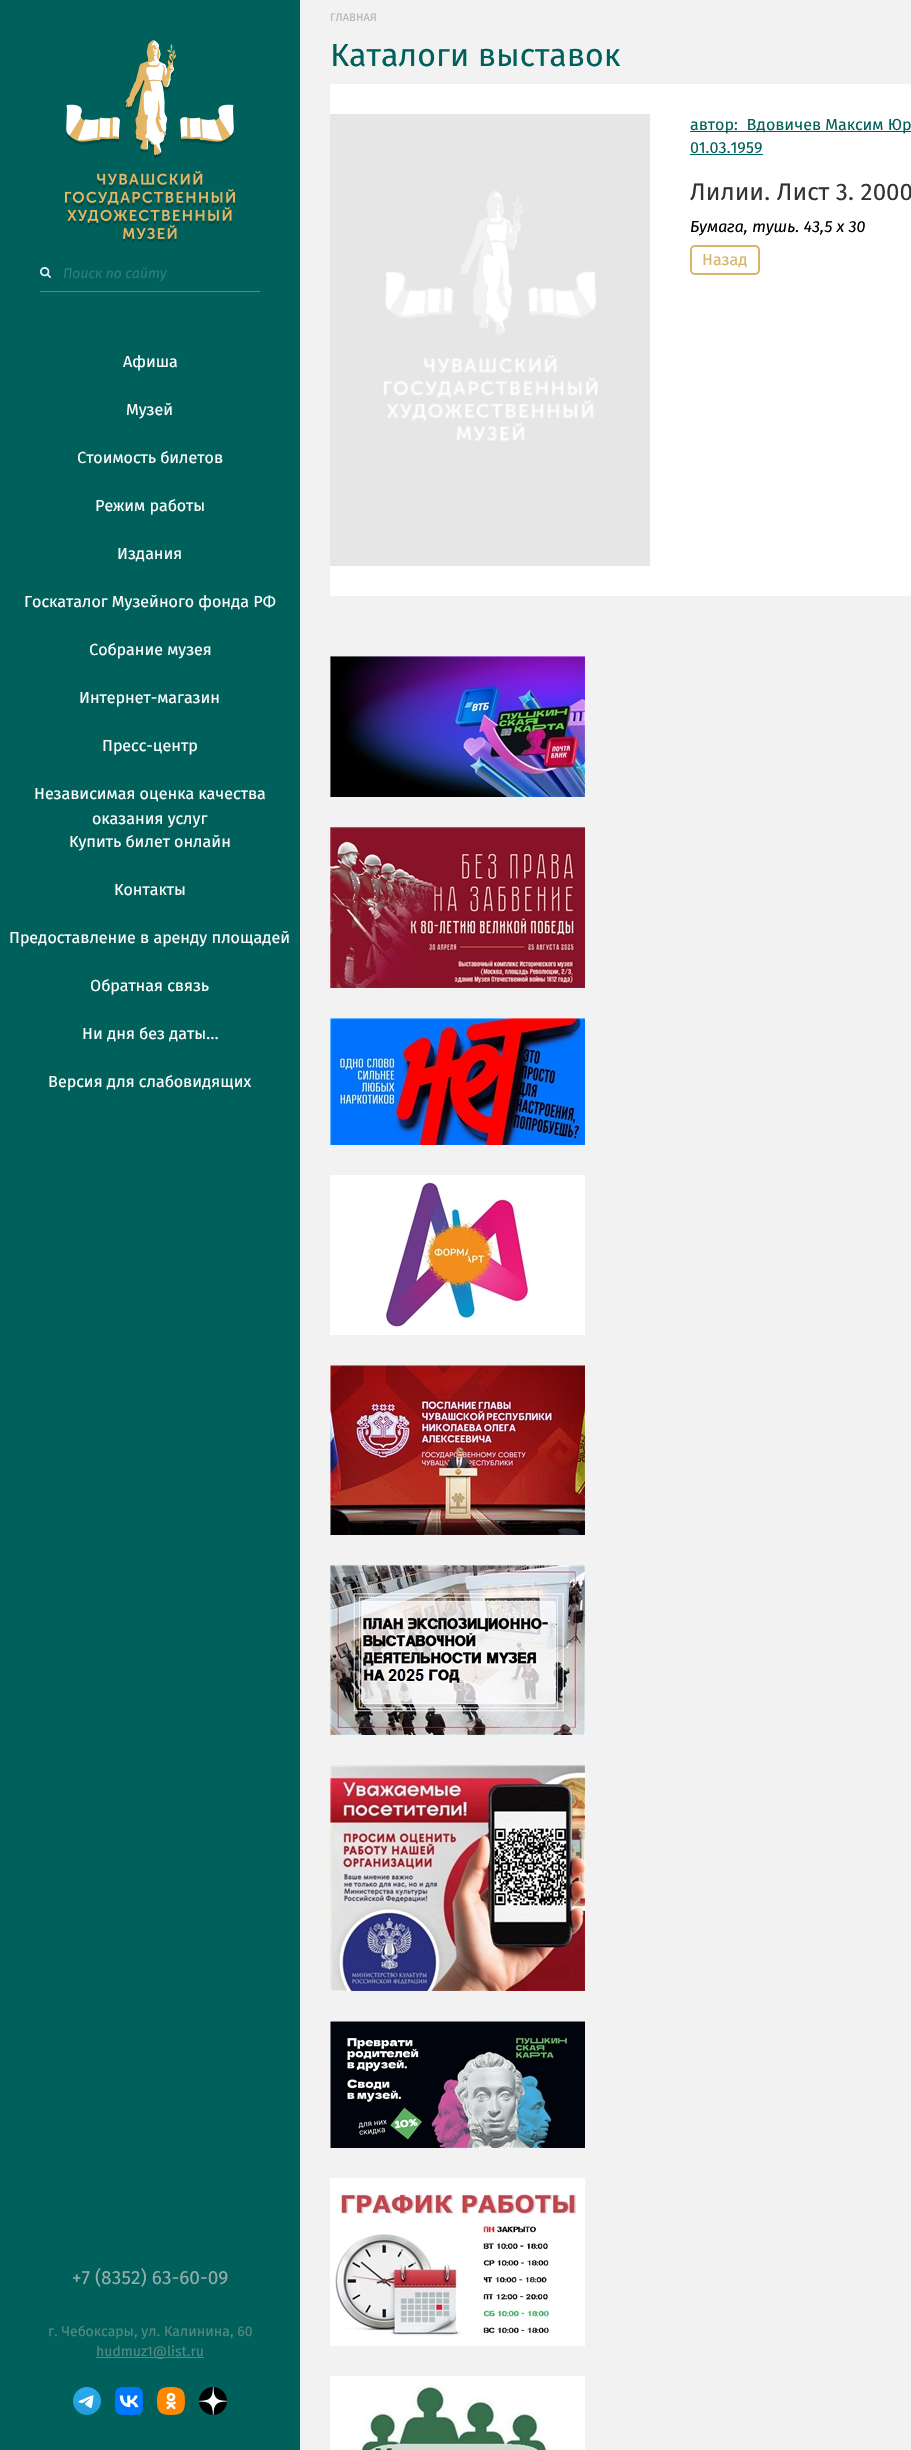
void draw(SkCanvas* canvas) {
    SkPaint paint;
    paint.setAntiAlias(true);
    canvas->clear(0xFFF2F2F2);
    SkFont font1(fontMgr->matchFamilyStyle("Fira Sans", SkFontStyle::Normal()), 11);
    font1.setSubpixel(true);
    paint.setColor(0xFFB3B3B3);
    canvas->drawString("ГЛАВНАЯ", 330, 21, font1, paint);
    SkFont font2(fontMgr->matchFamilyStyle("Fira Sans", SkFontStyle::Normal()), 32);
    font2.setSubpixel(true);
    paint.setColor(0xFF00605B);
    canvas->drawString("Каталоги выставок", 330, 66, font2, paint);
    paint.setColor(0xFFFFFFFF);
    canvas->drawRect(SkRect::MakeXYWH(330, 84, 581, 512), paint);
    canvas->drawImageRect(SkImages::DeferredFromEncodedData(SkData::MakeFromFileName("img1.png")), SkRect::MakeXYWH(330, 114, 320, 452), SkSamplingOptions());
    paint.setColor(0xFF00605B);
    canvas->drawRect(SkRect::MakeXYWH(690, 131, 221, 1), paint);
    SkFont font3(fontMgr->matchFamilyStyle("Fira Sans", SkFontStyle::Normal()), 16);
    font3.setSubpixel(true);
    canvas->drawString("автор:  Вдовичев Максим Юр", 690, 130, font3, paint);
    canvas->drawString("01.03.1959", 690, 153, font3, paint);
    canvas->drawRect(SkRect::MakeXYWH(690, 154, 73, 1), paint);
    SkFont font4(fontMgr->matchFamilyStyle("Fira Sans", SkFontStyle::Normal()), 24);
    font4.setSubpixel(true);
    paint.setColor(0xFF333333);
    canvas->drawString("Лилии. Лист 3. 2000", 690, 200, font4, paint);
    SkFont font5(fontMgr->matchFamilyStyle("Fira Sans", SkFontStyle::Italic()), 16);
    font5.setSubpixel(true);
    paint.setColor(0xFF000000);
    canvas->drawString("Бумага, тушь. 43,5 х 30", 690, 232, font5, paint);
    paint.setStyle(SkPaint::kStroke_Style);
    paint.setStrokeWidth(2);
    paint.setColor(0xFFD6B469);
    canvas->drawRoundRect(SkRect::MakeXYWH(691, 246, 68, 28), 4, 4, paint);
    paint.setStyle(SkPaint::kFill_Style);
    canvas->drawString("Назад", 702, 265, font3, paint);
    canvas->drawImageRect(SkImages::DeferredFromEncodedData(SkData::MakeFromFileName("img2.png")), SkRect::MakeXYWH(330, 656, 255, 141), SkSamplingOptions());
    canvas->drawImageRect(SkImages::DeferredFromEncodedData(SkData::MakeFromFileName("img3.png")), SkRect::MakeXYWH(330, 827, 255, 161), SkSamplingOptions());
    canvas->drawImageRect(SkImages::DeferredFromEncodedData(SkData::MakeFromFileName("img4.png")), SkRect::MakeXYWH(330, 1018, 255, 127), SkSamplingOptions());
    canvas->drawImageRect(SkImages::DeferredFromEncodedData(SkData::MakeFromFileName("img5.png")), SkRect::MakeXYWH(330, 1175, 255, 160), SkSamplingOptions());
    canvas->drawImageRect(SkImages::DeferredFromEncodedData(SkData::MakeFromFileName("img6.png")), SkRect::MakeXYWH(330, 1365, 255, 170), SkSamplingOptions());
    canvas->drawImageRect(SkImages::DeferredFromEncodedData(SkData::MakeFromFileName("img7.png")), SkRect::MakeXYWH(330, 1565, 255, 170), SkSamplingOptions());
    canvas->drawImageRect(SkImages::DeferredFromEncodedData(SkData::MakeFromFileName("img8.png")), SkRect::MakeXYWH(330, 1765, 255, 226), SkSamplingOptions());
    canvas->drawImageRect(SkImages::DeferredFromEncodedData(SkData::MakeFromFileName("img9.png")), SkRect::MakeXYWH(330, 2021, 255, 127), SkSamplingOptions());
    canvas->drawImageRect(SkImages::DeferredFromEncodedData(SkData::MakeFromFileName("img10.png")), SkRect::MakeXYWH(330, 2178, 255, 168), SkSamplingOptions());
    canvas->drawImageRect(SkImages::DeferredFromEncodedData(SkData::MakeFromFileName("img11.png")), SkRect::MakeXYWH(330, 2376, 255, 74), SkSamplingOptions());
    paint.setColor(0xFF00605B);
    canvas->drawRect(SkRect::MakeXYWH(0, 0, 300, 2450), paint);
    canvas->drawImageRect(SkImages::DeferredFromEncodedData(SkData::MakeFromFileName("img12.png")), SkRect::MakeXYWH(65, 40, 170, 202), SkSamplingOptions());
    paint.setColor(0xFF588885);
    canvas->drawRect(SkRect::MakeXYWH(40, 291, 220, 1), paint);
    canvas->drawImageRect(SkImages::DeferredFromEncodedData(SkData::MakeFromFileName("img13.png")), SkRect::MakeXYWH(40, 267, 11, 11), SkSamplingOptions());
    SkFont font6(fontMgr->matchFamilyStyle("Fira Sans", SkFontStyle::Italic()), 14);
    font6.setSubpixel(true);
    paint.setColor(0xFF307E7A);
    canvas->drawString("Поиск по сайту", 63, 278, font6, paint);
    paint.setColor(0xFFFFFFFF);
    canvas->drawString("Афиша", 123, 367, font3, paint);
    canvas->drawString("Музей", 126, 415, font3, paint);
    canvas->drawString("Стоимость билетов", 77, 463, font3, paint);
    canvas->drawString("Режим работы", 95, 511, font3, paint);
    canvas->drawString("Издания", 117, 559, font3, paint);
    canvas->drawString("Госкаталог Музейного фонда РФ", 24, 607, font3, paint);
    canvas->drawString("Собрание музея", 89, 655, font3, paint);
    canvas->drawString("Интернет-магазин", 79, 703, font3, paint);
    canvas->drawString("Пресс-центр", 102, 751, font3, paint);
    canvas->drawString("Независимая оценка качества", 34, 799, font3, paint);
    canvas->drawString("оказания услуг", 92, 824, font3, paint);
    canvas->drawString("Купить билет онлайн", 69, 847, font3, paint);
    canvas->drawString("Контакты", 114, 895, font3, paint);
    canvas->drawString("Предоставление в аренду площадей", 9, 943, font3, paint);
    canvas->drawString("Обратная связь", 90, 991, font3, paint);
    canvas->drawString("Ни дня без даты...", 82, 1039, font3, paint);
    canvas->drawString("Версия для слабовидящих", 48, 1087, font3, paint);
    SkFont font7(fontMgr->matchFamilyStyle("Fira Sans", SkFontStyle::Normal()), 19);
    font7.setSubpixel(true);
    paint.setColor(0xFF94AEAD);
    canvas->drawString("+7 (8352) 63-60-09", 72, 2284, font7, paint);
    SkFont font8(fontMgr->matchFamilyStyle("Fira Sans", SkFontStyle::Normal()), 14);
    font8.setSubpixel(true);
    paint.setColor(0xFF588885);
    canvas->drawString("г. Чебоксары, ул. Калинина, 60", 48, 2336, font8, paint);
    canvas->drawRect(SkRect::MakeXYWH(96, 2357, 108, 1), paint);
    canvas->drawString("hudmuz1@list.ru", 96, 2356, font8, paint);
    canvas->drawImageRect(SkImages::DeferredFromEncodedData(SkData::MakeFromFileName("img14.png")), SkRect::MakeXYWH(73, 2387, 28, 28), SkSamplingOptions());
    canvas->drawImageRect(SkImages::DeferredFromEncodedData(SkData::MakeFromFileName("img15.png")), SkRect::MakeXYWH(115, 2387, 28, 28), SkSamplingOptions());
    canvas->drawImageRect(SkImages::DeferredFromEncodedData(SkData::MakeFromFileName("img16.png")), SkRect::MakeXYWH(157, 2387, 28, 28), SkSamplingOptions());
    canvas->drawImageRect(SkImages::DeferredFromEncodedData(SkData::MakeFromFileName("img17.png")), SkRect::MakeXYWH(199, 2387, 28, 28), SkSamplingOptions());
}
